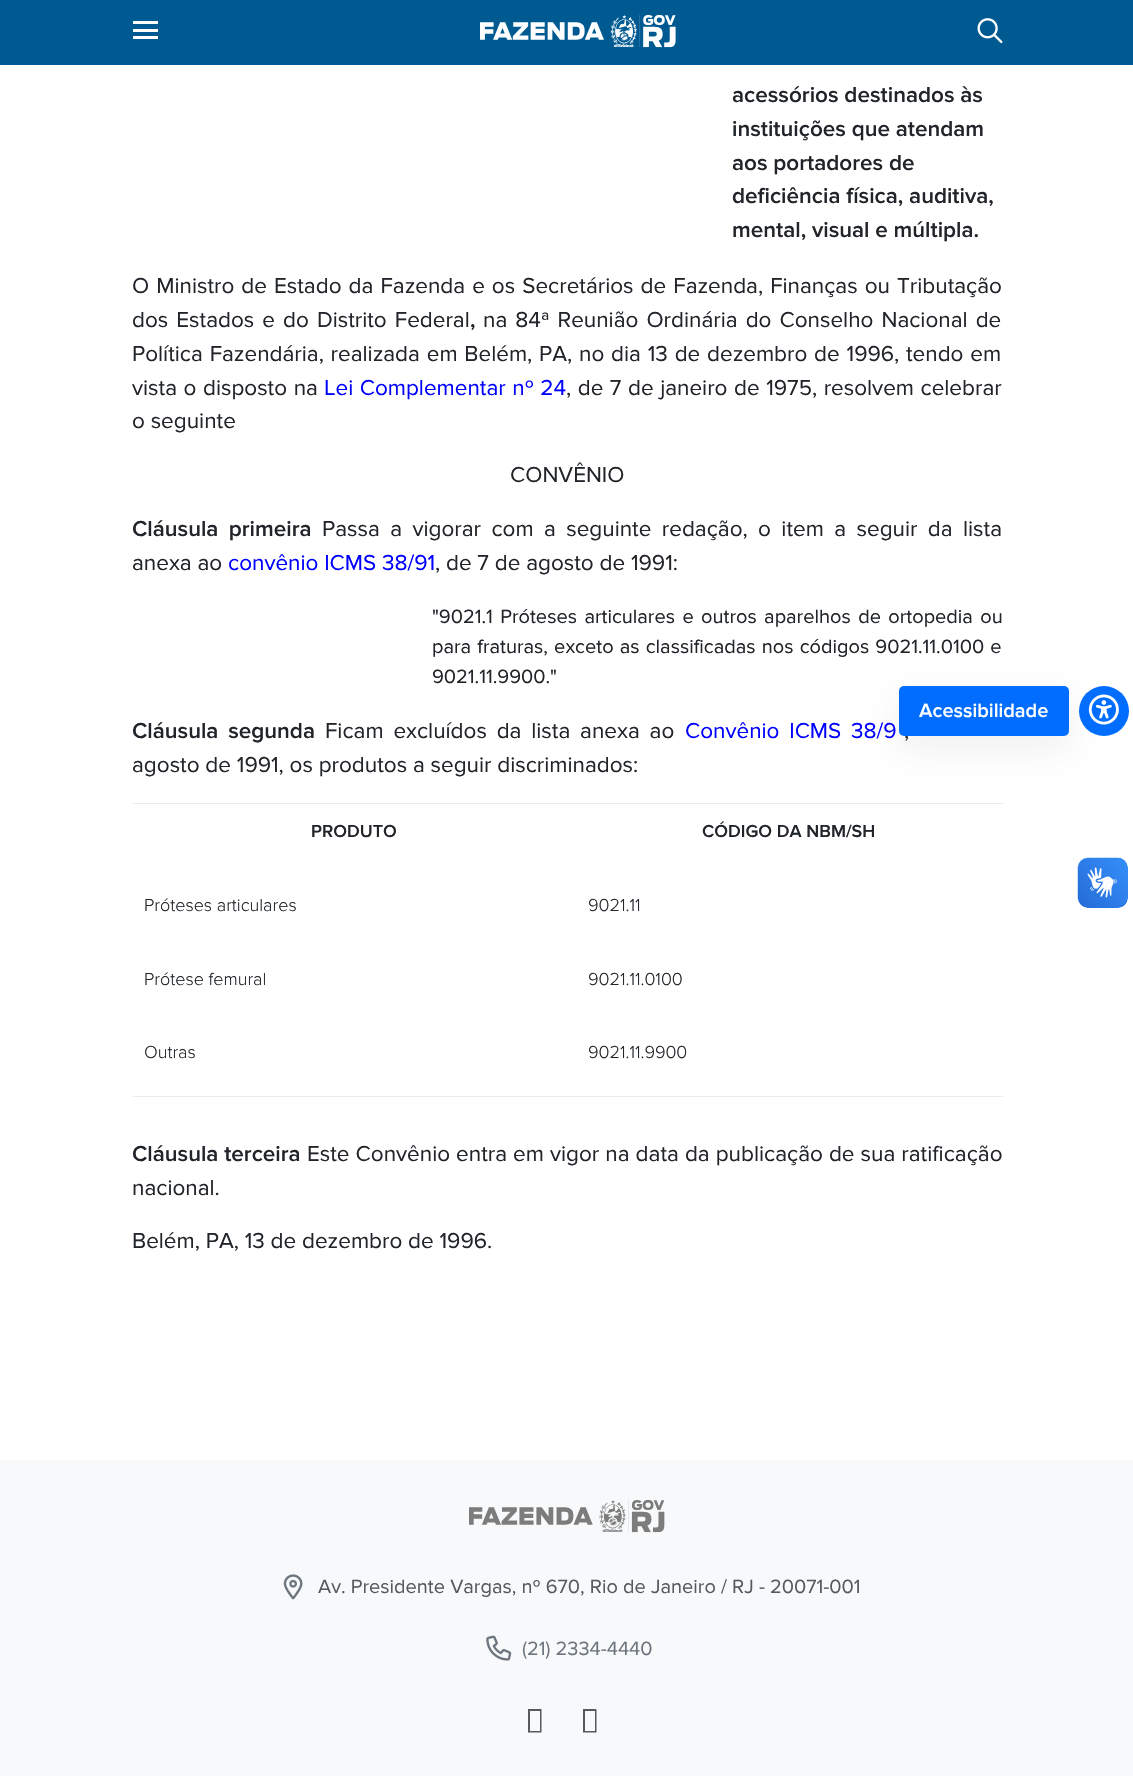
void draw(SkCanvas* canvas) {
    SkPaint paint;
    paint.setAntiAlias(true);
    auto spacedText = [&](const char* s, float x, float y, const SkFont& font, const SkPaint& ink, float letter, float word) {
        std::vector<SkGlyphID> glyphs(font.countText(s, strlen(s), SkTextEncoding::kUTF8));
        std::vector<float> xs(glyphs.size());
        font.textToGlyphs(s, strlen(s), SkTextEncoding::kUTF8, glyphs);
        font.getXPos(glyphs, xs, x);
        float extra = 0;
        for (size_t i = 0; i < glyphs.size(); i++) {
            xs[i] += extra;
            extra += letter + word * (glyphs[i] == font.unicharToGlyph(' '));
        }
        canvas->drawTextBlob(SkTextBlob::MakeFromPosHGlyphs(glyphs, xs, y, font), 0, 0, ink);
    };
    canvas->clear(0xFFFFFFFF);
    paint.setColor(0xFF005A92);
    canvas->drawRect(SkRect::MakeXYWH(0, 0, 1133, 65), paint);
    paint.setColor(0xFFFFFFFF);
    canvas->drawRect(SkRect::MakeXYWH(133, 29, 25, 3), paint);
    canvas->drawRect(SkRect::MakeXYWH(133, 21, 25, 3), paint);
    canvas->drawRect(SkRect::MakeXYWH(133, 36, 25, 3), paint);
    canvas->drawImageRect(SkImages::DeferredFromEncodedData(SkData::MakeFromFileName("img1.png")), SkRect::MakeXYWH(480, 15, 196, 33), SkSamplingOptions());
    canvas->drawImageRect(SkImages::DeferredFromEncodedData(SkData::MakeFromFileName("img2.png")), SkRect::MakeXYWH(977, 18, 26, 26), SkSamplingOptions());
    SkFont font1(fontMgr->matchFamilyStyle("Proxima Nova", SkFontStyle(600, SkFontStyle::kNormal_Width, SkFontStyle::kUpright_Slant)), 22.5f);
    font1.setSubpixel(true);
    paint.setColor(0xFF212529);
    canvas->drawString("acessórios destinados às", 732, 102, font1, paint);
    canvas->drawString("instituições que atendam", 732, 136, font1, paint);
    canvas->drawString("aos portadores de", 732, 170, font1, paint);
    canvas->drawString("deficiência física, auditiva,", 732, 203, font1, paint);
    canvas->drawString("mental, visual e múltipla.", 732, 237, font1, paint);
    SkFont font2(fontMgr->matchFamilyStyle("Proxima Nova", SkFontStyle::Normal()), 22.5f);
    font2.setSubpixel(true);
    spacedText("O Ministro de Estado da Fazenda e os Secretários de Fazenda, Finanças ou Tributação", 132, 293, font2, paint, 0, 1.25f);
    spacedText("dos Estados e do Distrito Federal", 132, 327, font2, paint, 0, 2.25f);
    canvas->drawString(",", 470, 327, font1, paint);
    spacedText("na 84ª Reunião Ordinária do Conselho Nacional de", 483, 327, font2, paint, 0, 2.25f);
    spacedText("Política Fazendária, realizada em Belém, PA, no dia 13 de dezembro de 1996, tendo em", 132, 361, font2, paint, 0, 1);
    spacedText("vista o disposto na", 132, 395, font2, paint, 0, 0.75f);
    paint.setColor(0xFF0000FF);
    spacedText("Lei Complementar nº 24", 324, 395, font2, paint, 0, 0.75f);
    paint.setColor(0xFF212529);
    spacedText(", de 7 de janeiro de 1975, resolvem celebrar", 566, 395, font2, paint, 0, 0.75f);
    canvas->drawString("o seguinte", 132, 428, font2, paint);
    canvas->drawString("CONVÊNIO", 510, 482, font2, paint);
    spacedText("Cláusula primeira", 132, 536, font1, paint, 0, 4.6f);
    spacedText("Passa a vigorar com a seguinte redação, o item a seguir da lista", 322, 536, font2, paint, 0, 4.6f);
    canvas->drawString("anexa ao", 132, 570, font2, paint);
    paint.setColor(0xFF0000FF);
    canvas->drawString("convênio ICMS 38/91", 228, 570, font2, paint);
    paint.setColor(0xFF212529);
    canvas->drawString(", de 7 de agosto de 1991:", 435, 570, font2, paint);
    SkFont font3(fontMgr->matchFamilyStyle("Proxima Nova", SkFontStyle::Normal()), 20);
    font3.setSubpixel(true);
    spacedText("\"9021.1 Próteses articulares e outros aparelhos de ortopedia ou", 432, 623, font3, paint, 0, 2.25f);
    spacedText("para fraturas, exceto as classificadas nos códigos 9021.11.0100 e", 432, 653, font3, paint, 0, 1);
    canvas->drawString("9021.11.9900.\"", 432, 683, font3, paint);
    spacedText("Cláusula segunda", 132, 738, font1, paint, 0, 4);
    spacedText("Ficam excluídos da lista anexa ao", 325, 738, font2, paint, 0, 4);
    paint.setColor(0xFF0000FF);
    spacedText("Convênio ICMS 38/9", 685, 738, font2, paint, 0, 4);
    paint.setColor(0xFF212529);
    spacedText(",", 904, 738, font2, paint, 0, 4);
    canvas->drawString("agosto de 1991, os produtos a seguir discriminados:", 132, 772, font2, paint);
    paint.setColor(0xFFE9ECEF);
    canvas->drawRect(SkRect::MakeXYWH(133, 803, 870, 1), paint);
    canvas->drawRect(SkRect::MakeXYWH(133, 1096, 870, 1), paint);
    SkFont font4(fontMgr->matchFamilyStyle("Proxima Nova", SkFontStyle(600, SkFontStyle::kNormal_Width, SkFontStyle::kUpright_Slant)), 18);
    font4.setSubpixel(true);
    paint.setColor(0xFF212529);
    canvas->drawString("PRODUTO", 311, 837, font4, paint);
    canvas->drawString("CÓDIGO DA NBM/SH", 702, 837, font4, paint);
    SkFont font5(fontMgr->matchFamilyStyle("Proxima Nova", SkFontStyle(300, SkFontStyle::kNormal_Width, SkFontStyle::kUpright_Slant)), 18);
    font5.setSubpixel(true);
    canvas->drawString("Próteses articulares", 144, 911, font5, paint);
    canvas->drawString("9021.11", 588, 911, font5, paint);
    canvas->drawString("Prótese femural", 144, 985, font5, paint);
    canvas->drawString("9021.11.0100", 588, 985, font5, paint);
    canvas->drawString("Outras", 144, 1058, font5, paint);
    canvas->drawString("9021.11.9900", 588, 1058, font5, paint);
    canvas->drawString("Cláusula terceira", 132, 1161, font1, paint);
    spacedText("Este Convênio entra em vigor na data da publicação de sua ratificação", 307, 1161, font2, paint, 0, 0.25f);
    canvas->drawString("nacional.", 132, 1195, font2, paint);
    canvas->drawString("Belém, PA, 13 de dezembro de 1996.", 132, 1248, font2, paint);
    paint.setColor(0xFF006DFF);
    canvas->drawCircle(1104, 711, 25, paint);
    canvas->drawImageRect(SkImages::DeferredFromEncodedData(SkData::MakeFromFileName("img3.png")), SkRect::MakeXYWH(1088, 694, 31, 31), SkSamplingOptions());
    paint.setColor(0x1A666666);
    paint.setMaskFilter(SkMaskFilter::MakeBlur(kNormal_SkBlurStyle, 19));
    canvas->drawRoundRect(SkRect::MakeXYWH(899, 699, 170, 50), 5, 5, paint);
    paint.setMaskFilter(nullptr);
    paint.setColor(0xFF006DFF);
    canvas->drawRoundRect(SkRect::MakeXYWH(899, 686, 170, 50), 5, 5, paint);
    SkFont font6(fontMgr->matchFamilyStyle("Proxima Nova", SkFontStyle(600, SkFontStyle::kNormal_Width, SkFontStyle::kUpright_Slant)), 20);
    font6.setSubpixel(true);
    paint.setColor(0xFFFFFFFF);
    canvas->drawString("Acessibilidade", 919, 717, font6, paint);
    canvas->drawImageRect(SkImages::DeferredFromEncodedData(SkData::MakeFromFileName("img4.png")), SkRect::MakeXYWH(1077, 857, 51, 51), SkSamplingOptions());
    canvas->drawImageRect(SkImages::DeferredFromEncodedData(SkData::MakeFromFileName("img5.png")), SkRect::MakeXYWH(1078, 858, 50, 50), SkSamplingOptions());
    paint.setColor(0xFFF8F9FA);
    canvas->drawRect(SkRect::MakeXYWH(0, 1460, 1133, 316), paint);
    canvas->drawImageRect(SkImages::DeferredFromEncodedData(SkData::MakeFromFileName("img6.png")), SkRect::MakeXYWH(469, 1500, 196, 33), SkSamplingOptions());
    canvas->drawImageRect(SkImages::DeferredFromEncodedData(SkData::MakeFromFileName("img7.png")), SkRect::MakeXYWH(283, 1574, 20, 26), SkSamplingOptions());
    paint.setColor(0xFF575A5D);
    canvas->drawString("Av. Presidente Vargas, nº 670, Rio de Janeiro / RJ - 20071-001", 318, 1593, font3, paint);
    canvas->drawImageRect(SkImages::DeferredFromEncodedData(SkData::MakeFromFileName("img8.png")), SkRect::MakeXYWH(486, 1635, 26, 26), SkSamplingOptions());
    paint.setColor(0xFF6C757D);
    canvas->drawString("(21) 2334-4440", 522, 1655, font3, paint);
    paint.setColor(0xFF575A5D);
    canvas->drawPath(SkPathBuilder().moveTo(528, 1732.5f).lineTo(528, 1709).lineTo(541.5f, 1709).lineTo(541.5f, 1732.5f).close().moveTo(530, 1731).lineTo(540, 1731).lineTo(540, 1711).lineTo(530, 1711).close().detach(), paint);
    canvas->drawPath(SkPathBuilder().moveTo(583, 1732.5f).lineTo(583, 1709).lineTo(596.5f, 1709).lineTo(596.5f, 1732.5f).close().moveTo(585, 1731).lineTo(595, 1731).lineTo(595, 1711).lineTo(585, 1711).close().detach(), paint);
}
